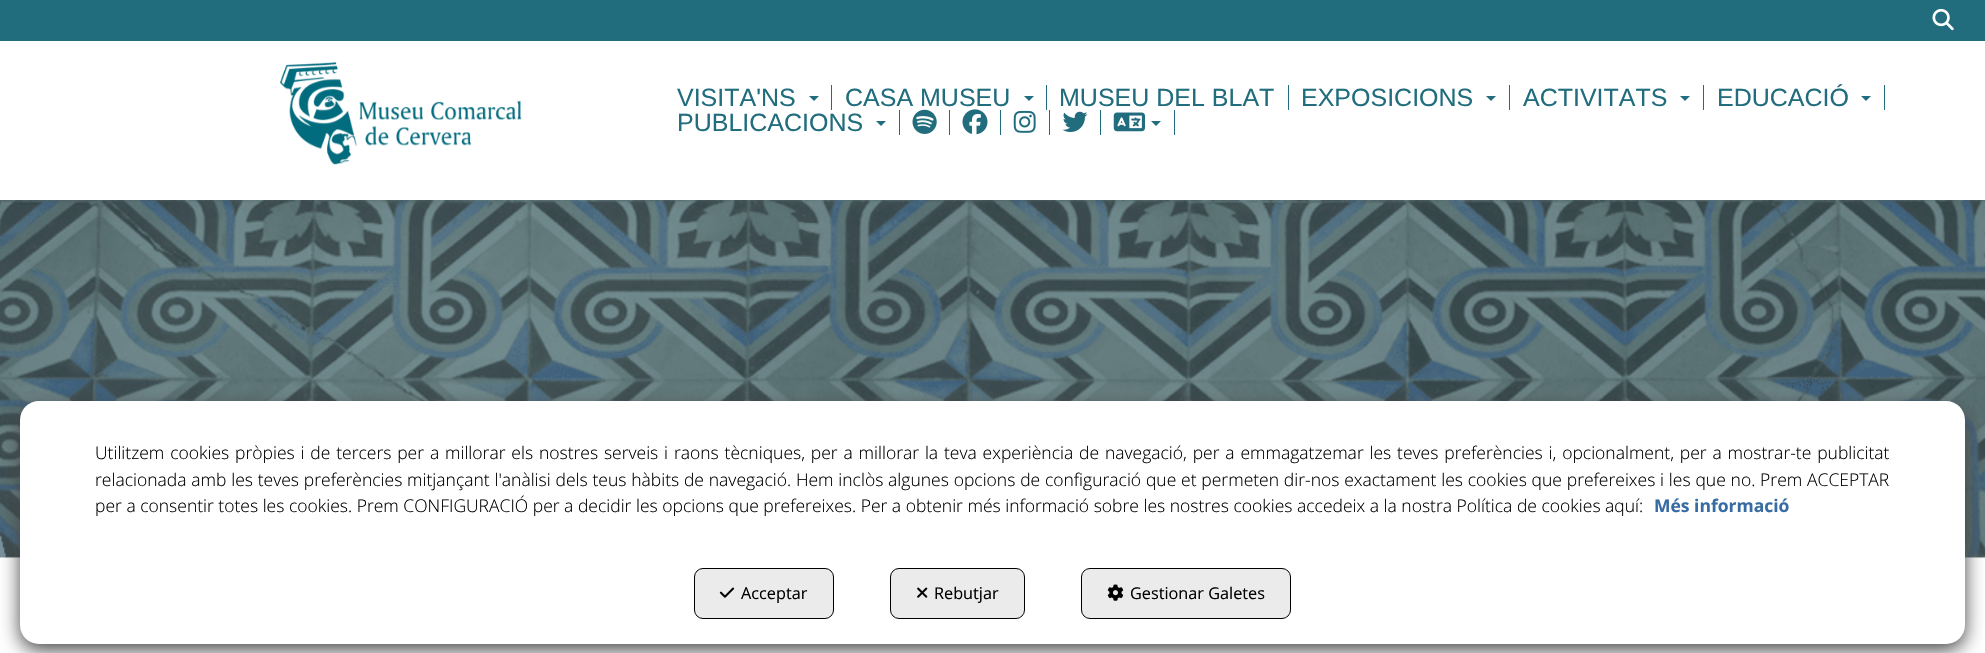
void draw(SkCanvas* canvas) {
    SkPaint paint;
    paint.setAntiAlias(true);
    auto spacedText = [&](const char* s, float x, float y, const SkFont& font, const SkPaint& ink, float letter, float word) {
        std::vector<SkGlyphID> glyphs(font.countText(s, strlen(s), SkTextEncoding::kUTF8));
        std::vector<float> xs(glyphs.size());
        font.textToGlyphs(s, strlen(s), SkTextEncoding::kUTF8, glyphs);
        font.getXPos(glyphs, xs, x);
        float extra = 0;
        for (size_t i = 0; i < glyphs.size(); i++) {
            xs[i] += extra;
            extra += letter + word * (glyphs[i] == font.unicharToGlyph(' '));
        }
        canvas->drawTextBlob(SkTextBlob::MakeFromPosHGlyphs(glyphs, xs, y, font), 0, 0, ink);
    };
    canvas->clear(0xFFFFFFFF);
    paint.setColor(0xFF216D7D);
    canvas->drawRect(SkRect::MakeXYWH(0, 0, 1985, 41), paint);
    canvas->drawImageRect(SkImages::DeferredFromEncodedData(SkData::MakeFromFileName("img1.png")), SkRect::MakeXYWH(1932, 8, 22, 23), SkSamplingOptions());
    canvas->drawImageRect(SkImages::DeferredFromEncodedData(SkData::MakeFromFileName("img2.png")), SkRect::MakeXYWH(280, 62, 242, 103), SkSamplingOptions());
    canvas->drawRect(SkRect::MakeXYWH(831, 85, 1, 25), paint);
    SkFont font1(fontMgr->matchFamilyStyle("Liberation Sans", SkFontStyle::Normal()), 25);
    font1.setSubpixel(true);
    canvas->drawString("VISITA'NS", 677, 106, font1, paint);
    canvas->drawPath(SkPathBuilder().moveTo(809, 96).lineTo(819, 96).lineTo(814, 101).close().detach(), paint);
    canvas->drawRect(SkRect::MakeXYWH(1046, 85, 1, 25), paint);
    canvas->drawString("CASA MUSEU", 845, 106, font1, paint);
    canvas->drawPath(SkPathBuilder().moveTo(1024, 96).lineTo(1034, 96).lineTo(1029, 101).close().detach(), paint);
    canvas->drawRect(SkRect::MakeXYWH(1288, 85, 1, 25), paint);
    canvas->drawString("MUSEU DEL BLAT", 1059, 106, font1, paint);
    canvas->drawRect(SkRect::MakeXYWH(1509, 85, 1, 25), paint);
    canvas->drawString("EXPOSICIONS", 1301, 106, font1, paint);
    canvas->drawPath(SkPathBuilder().moveTo(1486, 96).lineTo(1496, 96).lineTo(1491, 101).close().detach(), paint);
    canvas->drawRect(SkRect::MakeXYWH(1703, 85, 1, 25), paint);
    canvas->drawString("ACTIVITATS", 1523, 106, font1, paint);
    canvas->drawPath(SkPathBuilder().moveTo(1680, 96).lineTo(1690, 96).lineTo(1685, 101).close().detach(), paint);
    canvas->drawRect(SkRect::MakeXYWH(1884, 85, 1, 25), paint);
    canvas->drawString("EDUCACIÓ", 1717, 106, font1, paint);
    canvas->drawPath(SkPathBuilder().moveTo(1861, 96).lineTo(1871, 96).lineTo(1866, 101).close().detach(), paint);
    canvas->drawRect(SkRect::MakeXYWH(899, 110, 1, 25), paint);
    canvas->drawString("PUBLICACIONS", 677, 131, font1, paint);
    canvas->drawPath(SkPathBuilder().moveTo(876, 121).lineTo(886, 121).lineTo(881, 126).close().detach(), paint);
    canvas->drawRect(SkRect::MakeXYWH(949, 110, 1, 25), paint);
    canvas->drawImageRect(SkImages::DeferredFromEncodedData(SkData::MakeFromFileName("img3.png")), SkRect::MakeXYWH(912, 109, 25, 25), SkSamplingOptions());
    canvas->drawRect(SkRect::MakeXYWH(1000, 110, 1, 25), paint);
    canvas->drawImageRect(SkImages::DeferredFromEncodedData(SkData::MakeFromFileName("img4.png")), SkRect::MakeXYWH(962, 109, 26, 26), SkSamplingOptions());
    canvas->drawRect(SkRect::MakeXYWH(1049, 110, 1, 25), paint);
    canvas->drawImageRect(SkImages::DeferredFromEncodedData(SkData::MakeFromFileName("img5.png")), SkRect::MakeXYWH(1013, 110, 23, 23), SkSamplingOptions());
    canvas->drawRect(SkRect::MakeXYWH(1100, 110, 1, 25), paint);
    canvas->drawImageRect(SkImages::DeferredFromEncodedData(SkData::MakeFromFileName("img6.png")), SkRect::MakeXYWH(1062, 111, 26, 21), SkSamplingOptions());
    canvas->drawRect(SkRect::MakeXYWH(1174, 110, 1, 25), paint);
    canvas->drawImageRect(SkImages::DeferredFromEncodedData(SkData::MakeFromFileName("img7.png")), SkRect::MakeXYWH(1113, 112, 32, 20), SkSamplingOptions());
    canvas->drawPath(SkPathBuilder().moveTo(1151, 121).lineTo(1161, 121).lineTo(1156, 126).close().detach(), paint);
    canvas->drawImageRect(SkImages::DeferredFromEncodedData(SkData::MakeFromFileName("img8.png")), SkRect::MakeXYWH(0, 200, 1985, 358), SkSamplingOptions());
    paint.setColor(0xFF454545);
    paint.setMaskFilter(SkMaskFilter::MakeBlur(kNormal_SkBlurStyle, 9.5f));
    canvas->drawRoundRect(SkRect::MakeXYWH(20, 408, 1945, 242), 19, 19, paint);
    paint.setMaskFilter(nullptr);
    paint.setColor(0xFFFFFFFF);
    canvas->drawRoundRect(SkRect::MakeXYWH(20, 401, 1945, 243), 19, 19, paint);
    SkFont font2(fontMgr->matchFamilyStyle("Open Sans", SkFontStyle(300, SkFontStyle::kNormal_Width, SkFontStyle::kUpright_Slant)), 17.5f);
    font2.setSubpixel(true);
    paint.setColor(0xFF000000);
    spacedText("Utilitzem cookies pròpies i de tercers per a millorar els nostres serveis i raons tècniques, per a millorar la teva experiència de navegació, per a emmagatzemar les teves preferències i, opcionalment, per a mostrar-te publicitat", 95, 459, font2, paint, 0, 1.3f);
    spacedText("relacionada amb les teves preferències mitjançant l'anàlisi dels teus hàbits de navegació. Hem inclòs algunes opcions de configuració que et permeten dir-nos exactament les cookies que prefereixes i les que no. Prem ACCEPTAR", 95, 486, font2, paint, 0, 0.25f);
    canvas->drawString("per a consentir totes les cookies. Prem CONFIGURACIÓ per a decidir les opcions que prefereixes. Per a obtenir més informació sobre les nostres cookies accedeix a la nostra Política de cookies aquí:", 95, 512, font2, paint);
    SkFont font3(fontMgr->matchFamilyStyle("Open Sans", SkFontStyle::Bold()), 17.5f);
    font3.setSubpixel(true);
    paint.setColor(0xFF376BA3);
    canvas->drawString("Més informació", 1654, 512, font3, paint);
    paint.setColor(0xFFEBEBEB);
    canvas->drawRoundRect(SkRect::MakeXYWH(694.5f, 568.5f, 139, 50), 8.5f, 8.5f, paint);
    paint.setStyle(SkPaint::kStroke_Style);
    paint.setStrokeWidth(1);
    paint.setColor(0xFF000000);
    canvas->drawRoundRect(SkRect::MakeXYWH(694.5f, 568.5f, 139, 50), 8.5f, 8.5f, paint);
    canvas->drawImageRect(SkImages::DeferredFromEncodedData(SkData::MakeFromFileName("img9.png")), SkRect::MakeXYWH(719, 587, 16, 11), SkSamplingOptions());
    SkFont font4(fontMgr->matchFamilyStyle("Open Sans", SkFontStyle::Normal()), 16.25f);
    font4.setSubpixel(true);
    paint.setStyle(SkPaint::kFill_Style);
    canvas->drawString("Acceptar", 741, 599, font4, paint);
    paint.setColor(0xFFEBEBEB);
    canvas->drawRoundRect(SkRect::MakeXYWH(890.5f, 568.5f, 134, 50), 8.5f, 8.5f, paint);
    paint.setStyle(SkPaint::kStroke_Style);
    paint.setColor(0xFF000000);
    canvas->drawRoundRect(SkRect::MakeXYWH(890.5f, 568.5f, 134, 50), 8.5f, 8.5f, paint);
    canvas->drawImageRect(SkImages::DeferredFromEncodedData(SkData::MakeFromFileName("img10.png")), SkRect::MakeXYWH(917, 587, 11, 11), SkSamplingOptions());
    paint.setStyle(SkPaint::kFill_Style);
    canvas->drawString("Rebutjar", 934, 599, font4, paint);
    paint.setColor(0xFFEBEBEB);
    canvas->drawRoundRect(SkRect::MakeXYWH(1081.5f, 568.5f, 209, 50), 8.5f, 8.5f, paint);
    paint.setStyle(SkPaint::kStroke_Style);
    paint.setColor(0xFF000000);
    canvas->drawRoundRect(SkRect::MakeXYWH(1081.5f, 568.5f, 209, 50), 8.5f, 8.5f, paint);
    canvas->drawImageRect(SkImages::DeferredFromEncodedData(SkData::MakeFromFileName("img11.png")), SkRect::MakeXYWH(1107, 584, 17, 17), SkSamplingOptions());
    paint.setStyle(SkPaint::kFill_Style);
    canvas->drawString("Gestionar Galetes", 1130, 599, font4, paint);
}
